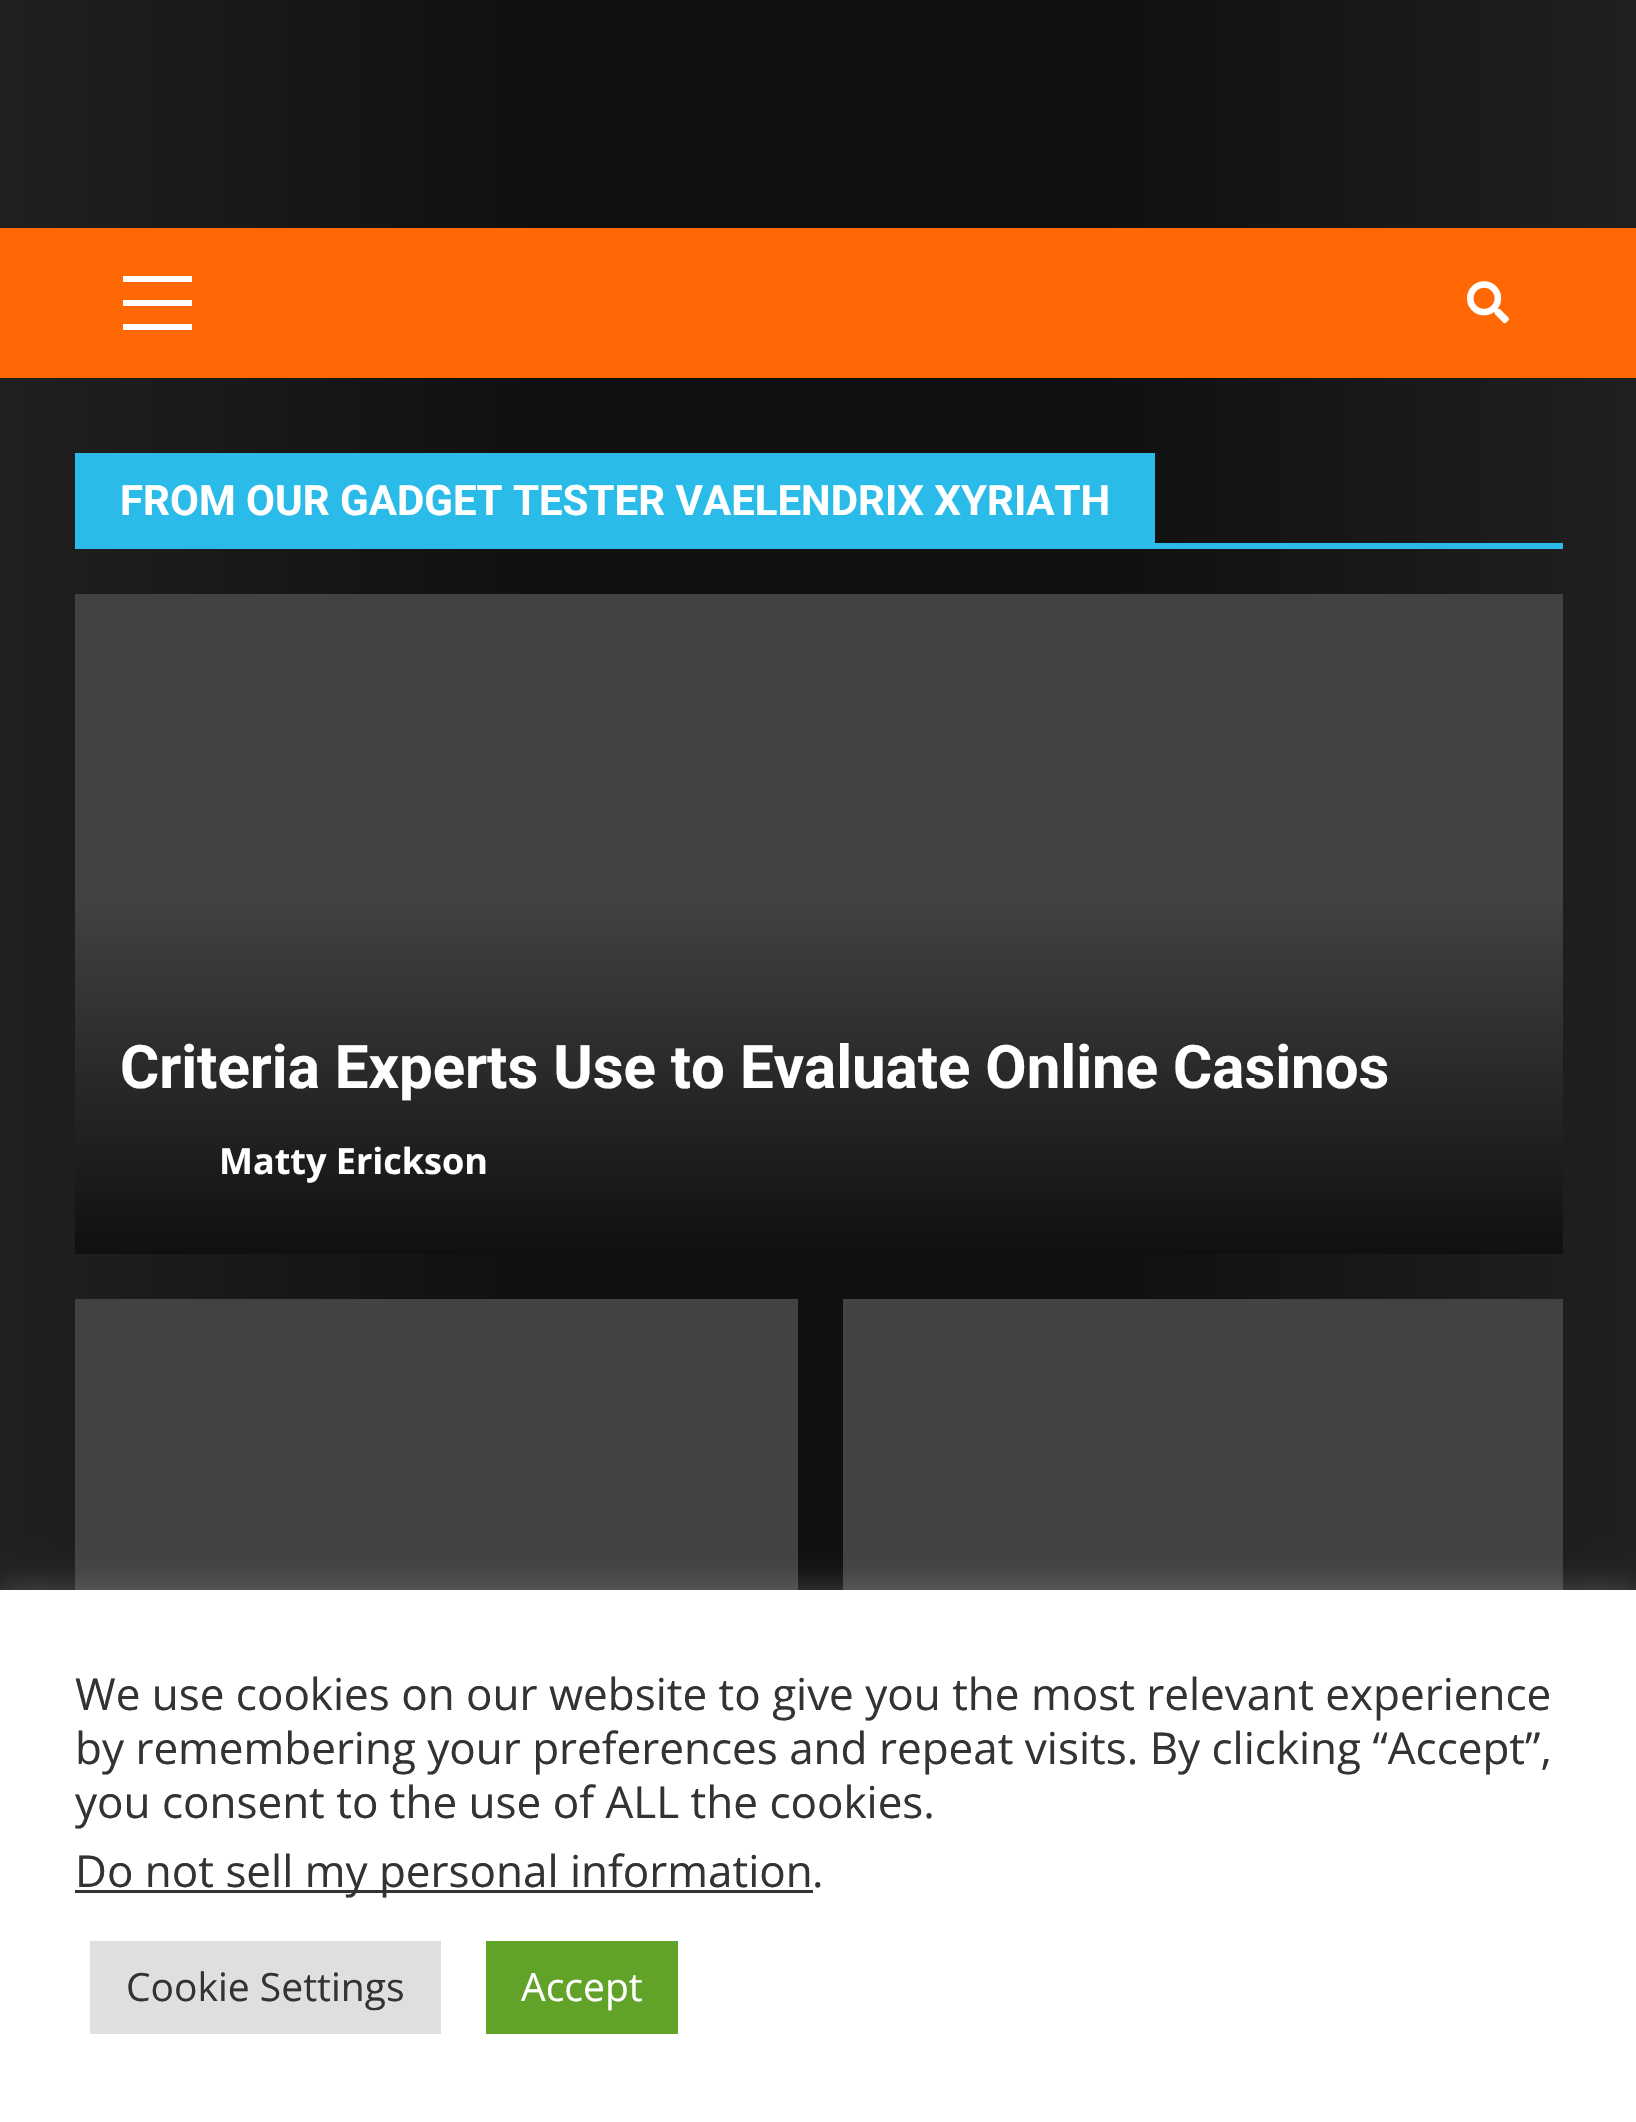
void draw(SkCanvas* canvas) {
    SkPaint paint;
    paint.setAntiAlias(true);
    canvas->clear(0xFFFFFFFF);
    {
        const SkColor colors[] = {0xFF202020, 0xFF101010, 0xFF101010, 0xFF202020};
        const float stops[] = {0, 0.33f, 0.67f, 1};
        const SkPoint ends[] = {{0, 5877}, {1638, 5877}};
        paint.setShader(SkGradientShader::MakeLinear(ends, colors, stops, 4, SkTileMode::kClamp));
        paint.setAlpha(255);
    }
    canvas->drawRect(SkRect::MakeXYWH(0, 0, 1636, 1590), paint);
    paint.setShader(nullptr);
    paint.setColor(0xFFFF6804);
    canvas->drawRect(SkRect::MakeXYWH(0, 228, 1636, 150), paint);
    paint.setColor(0xFFFFFFFF);
    canvas->drawRect(SkRect::MakeXYWH(123, 300, 69, 6), paint);
    canvas->drawRect(SkRect::MakeXYWH(123, 276, 69, 6), paint);
    canvas->drawRect(SkRect::MakeXYWH(123, 324, 69, 6), paint);
    canvas->drawImageRect(SkImages::DeferredFromEncodedData(SkData::MakeFromFileName("img1.png")), SkRect::MakeXYWH(1467, 281, 42, 43), SkSamplingOptions());
    paint.setColor(0xFF2ABBE8);
    canvas->drawRect(SkRect::MakeXYWH(75, 543, 1488, 6), paint);
    canvas->drawRect(SkRect::MakeXYWH(75, 453, 1080, 90), paint);
    SkFont font1(fontMgr->matchFamilyStyle("Roboto", SkFontStyle::Bold()), 42);
    font1.setSubpixel(true);
    paint.setColor(0xFFFFFFFF);
    canvas->drawString("FROM OUR GADGET TESTER VAELENDRIX XYRIATH", 120, 515, font1, paint);
    paint.setColor(0xFF424242);
    canvas->drawRect(SkRect::MakeXYWH(75, 594, 1488, 303), paint);
    {
        const SkColor colors[] = {0xFF424242, 0xFF101010};
        const float stops[] = {0, 1};
        const SkPoint ends[] = {{819, 897}, {819, 1254}};
        paint.setShader(SkGradientShader::MakeLinear(ends, colors, stops, 2, SkTileMode::kClamp));
        paint.setAlpha(255);
    }
    canvas->drawRect(SkRect::MakeXYWH(75, 897, 1488, 357), paint);
    SkFont font2(fontMgr->matchFamilyStyle("Roboto", SkFontStyle::Bold()), 60);
    font2.setSubpixel(true);
    paint.setShader(nullptr);
    paint.setColor(0xFFFFFFFF);
    canvas->drawString("Criteria Experts Use to Evaluate Online Casinos", 120, 1088, font2, paint);
    SkFont font3(fontMgr->matchFamilyStyle("Open Sans", SkFontStyle::Bold()), 36);
    font3.setSubpixel(true);
    canvas->drawString("Matty Erickson", 219, 1174, font3, paint);
    paint.setColor(0xFF424242);
    canvas->drawRect(SkRect::MakeXYWH(75, 1299, 723, 279), paint);
    {
        const SkColor colors[] = {0xFF424242, 0xFF111111};
        const float stops[] = {0, 1};
        const SkPoint ends[] = {{437, 1578}, {437, 1959}};
        paint.setShader(SkGradientShader::MakeLinear(ends, colors, stops, 2, SkTileMode::kClamp));
        paint.setAlpha(255);
    }
    canvas->drawRect(SkRect::MakeXYWH(75, 1578, 723, 12), paint);
    paint.setShader(nullptr);
    paint.setColor(0xFF424242);
    canvas->drawRect(SkRect::MakeXYWH(843, 1299, 720, 291), paint);
    paint.setColor(0x4DACABAB);
    paint.setMaskFilter(SkMaskFilter::MakeBlur(kNormal_SkBlurStyle, 15));
    canvas->drawRect(SkRect::MakeXYWH(0, 1587, 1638, 534), paint);
    paint.setMaskFilter(nullptr);
    paint.setColor(0xFFFFFFFF);
    canvas->drawRect(SkRect::MakeXYWH(0, 1590, 1636, 532), paint);
    SkFont font4(fontMgr->matchFamilyStyle("Open Sans", SkFontStyle::Normal()), 44);
    font4.setSubpixel(true);
    paint.setColor(0xFF333333);
    canvas->drawString("We use cookies on our website to give you the most relevant experience", 75, 1710, font4, paint);
    canvas->drawString("by remembering your preferences and repeat visits. By clicking “Accept”,", 75, 1764, font4, paint);
    canvas->drawString("you consent to the use of ALL the cookies.", 75, 1818, font4, paint);
    canvas->drawRect(SkRect::MakeXYWH(75, 1890, 738, 3), paint);
    canvas->drawString("Do not sell my personal information", 75, 1887, font4, paint);
    canvas->drawString(".", 812, 1887, font4, paint);
    paint.setColor(0xFFDEDFE0);
    canvas->drawRect(SkRect::MakeXYWH(90, 1941, 351, 93), paint);
    SkFont font5(fontMgr->matchFamilyStyle("Open Sans", SkFontStyle::Normal()), 39);
    font5.setSubpixel(true);
    paint.setColor(0xFF333333);
    canvas->drawString("Cookie Settings", 126, 2001, font5, paint);
    paint.setColor(0xFF61A229);
    canvas->drawRect(SkRect::MakeXYWH(486, 1941, 192, 93), paint);
    paint.setColor(0xFFFFFFFF);
    canvas->drawString("Accept", 521, 2001, font5, paint);
}
